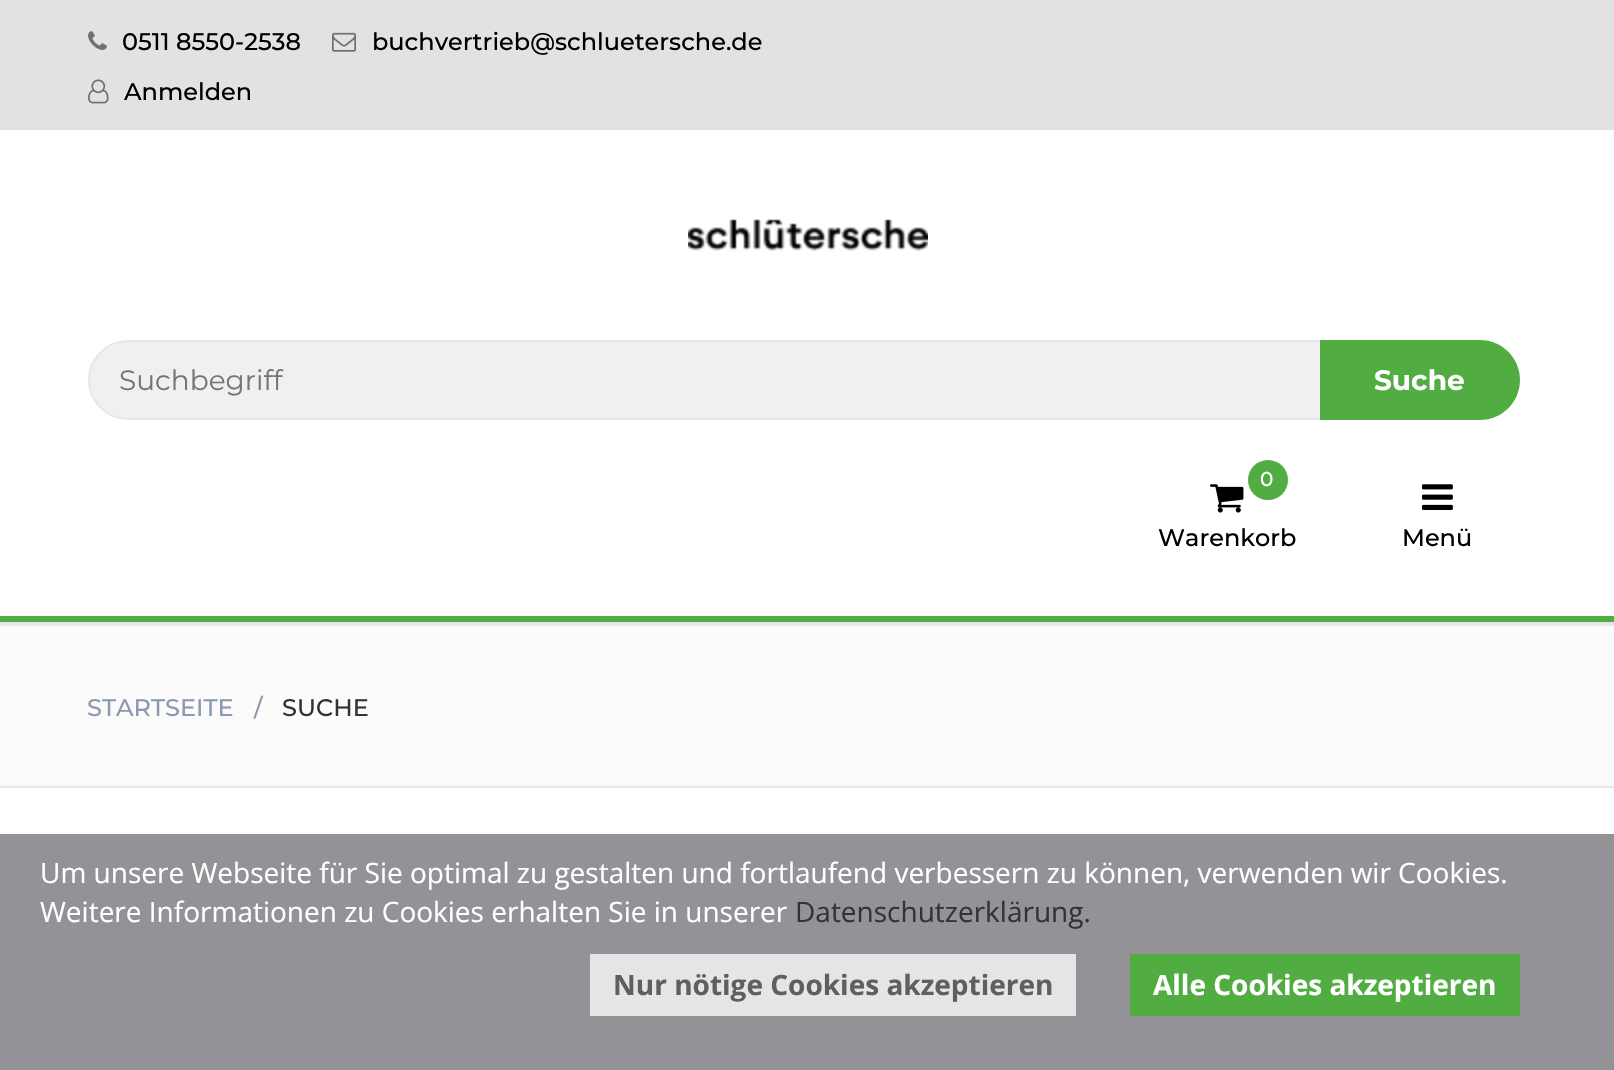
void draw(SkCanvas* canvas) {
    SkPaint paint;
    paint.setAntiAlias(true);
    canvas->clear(0xFFFFFFFF);
    paint.setColor(0xFFE2E2E2);
    canvas->drawRect(SkRect::MakeXYWH(0, 0, 1614, 130), paint);
    canvas->drawImageRect(SkImages::DeferredFromEncodedData(SkData::MakeFromFileName("img1.png")), SkRect::MakeXYWH(88, 31, 19, 19), SkSamplingOptions());
    SkFont font1(fontMgr->matchFamilyStyle("Montserrat", SkFontStyle(100, SkFontStyle::kNormal_Width, SkFontStyle::kUpright_Slant)), 24);
    font1.setSubpixel(true);
    paint.setColor(0xFF000000);
    canvas->drawString("0511 8550-2538", 122, 50, font1, paint);
    canvas->drawImageRect(SkImages::DeferredFromEncodedData(SkData::MakeFromFileName("img2.png")), SkRect::MakeXYWH(332, 32, 24, 20), SkSamplingOptions());
    canvas->drawString("buchvertrieb@schluetersche.de", 372, 50, font1, paint);
    canvas->drawImageRect(SkImages::DeferredFromEncodedData(SkData::MakeFromFileName("img3.png")), SkRect::MakeXYWH(88, 79, 21, 25), SkSamplingOptions());
    canvas->drawString("Anmelden", 124, 100, font1, paint);
    canvas->drawImageRect(SkImages::DeferredFromEncodedData(SkData::MakeFromFileName("img4.png")), SkRect::MakeXYWH(688, 219, 240, 32), SkSamplingOptions());
    paint.setColor(0xFFF0F0F0);
    canvas->drawPath(SkPathBuilder().moveTo(128, 341).lineTo(1327, 341).lineTo(1327, 419).lineTo(128, 419).cubicTo(106.5f, 419, 89, 401.5f, 89, 380).cubicTo(89, 358.5f, 106.5f, 341, 128, 341).close().detach(), paint);
    paint.setStyle(SkPaint::kStroke_Style);
    paint.setStrokeWidth(2);
    paint.setColor(0xFFE4E7ED);
    canvas->drawPath(SkPathBuilder().moveTo(128, 341).lineTo(1327, 341).lineTo(1327, 419).lineTo(128, 419).cubicTo(106.5f, 419, 89, 401.5f, 89, 380).cubicTo(89, 358.5f, 106.5f, 341, 128, 341).close().detach(), paint);
    SkFont font2(fontMgr->matchFamilyStyle("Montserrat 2", SkFontStyle(100, SkFontStyle::kNormal_Width, SkFontStyle::kUpright_Slant)), 28);
    font2.setSubpixel(true);
    paint.setStyle(SkPaint::kFill_Style);
    paint.setColor(0xFF757575);
    canvas->drawString("Suchbegriff", 119, 390, font2, paint);
    paint.setColor(0xFF51AD42);
    canvas->drawPath(SkPathBuilder().moveTo(1320, 340).lineTo(1480, 340).cubicTo(1502, 340, 1520, 358, 1520, 380).cubicTo(1520, 402, 1502, 420, 1480, 420).lineTo(1320, 420).close().detach(), paint);
    SkFont font3(fontMgr->matchFamilyStyle("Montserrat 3", SkFontStyle(100, SkFontStyle::kNormal_Width, SkFontStyle::kUpright_Slant)), 28);
    font3.setSubpixel(true);
    paint.setColor(0xFFFFFFFF);
    canvas->drawString("Suche", 1374, 390, font3, paint);
    paint.setColor(0xFF51AD42);
    canvas->drawCircle(1268, 480, 20, paint);
    SkFont font4(fontMgr->matchFamilyStyle("Montserrat", SkFontStyle(100, SkFontStyle::kNormal_Width, SkFontStyle::kUpright_Slant)), 20);
    font4.setSubpixel(true);
    paint.setColor(0xFFFFFFFF);
    canvas->drawString("0", 1260, 486, font4, paint);
    canvas->drawImageRect(SkImages::DeferredFromEncodedData(SkData::MakeFromFileName("img5.png")), SkRect::MakeXYWH(1210, 484, 34, 29), SkSamplingOptions());
    paint.setColor(0xFF000000);
    canvas->drawString("Warenkorb", 1158, 546, font1, paint);
    canvas->drawImageRect(SkImages::DeferredFromEncodedData(SkData::MakeFromFileName("img6.png")), SkRect::MakeXYWH(1422, 484, 31, 26), SkSamplingOptions());
    canvas->drawString("Menü", 1402, 546, font1, paint);
    paint.setColor(0xFF51AD42);
    canvas->drawRect(SkRect::MakeXYWH(0, 616, 1614, 6), paint);
    paint.setColor(0xFFE4E7ED);
    canvas->drawRect(SkRect::MakeXYWH(0, 622, 1614, 4), paint);
    paint.setColor(0xFFFBFBFC);
    canvas->drawRect(SkRect::MakeXYWH(0, 626, 1614, 160), paint);
    paint.setColor(0xFFE4E7ED);
    canvas->drawRect(SkRect::MakeXYWH(0, 786, 1614, 2), paint);
    paint.setColor(0xFF8D99AE);
    canvas->drawString("STARTSEITE", 87, 716, font1, paint);
    canvas->drawString("/", 254, 716, font1, paint);
    paint.setColor(0xFF333333);
    canvas->drawString("SUCHE", 282, 716, font1, paint);
    paint.setColor(0xFF939397);
    canvas->drawRect(SkRect::MakeXYWH(0, 834, 1614, 236), paint);
    SkFont font5(fontMgr->matchFamilyStyle("Open Sans", SkFontStyle::Normal()), 28);
    font5.setSubpixel(true);
    paint.setColor(0xFFFFFFFF);
    canvas->drawString("Um unsere Webseite für Sie optimal zu gestalten und fortlaufend verbessern zu können, verwenden wir Cookies.", 40, 883, font5, paint);
    canvas->drawString("Weitere Informationen zu Cookies erhalten Sie in unserer", 40, 922, font5, paint);
    paint.setColor(0xFF333333);
    canvas->drawString("Datenschutzerklärung.", 795, 922, font5, paint);
    paint.setColor(0xFFE5E5E5);
    canvas->drawRect(SkRect::MakeXYWH(590, 954, 486, 62), paint);
    SkFont font6(fontMgr->matchFamilyStyle("Open Sans", SkFontStyle::Bold()), 28);
    font6.setSubpixel(true);
    paint.setColor(0xFF5F5F5F);
    canvas->drawString("Nur nötige Cookies akzeptieren", 613, 995, font6, paint);
    paint.setColor(0xFF51AD42);
    canvas->drawRect(SkRect::MakeXYWH(1130, 954, 390, 62), paint);
    paint.setColor(0xFFFFFFFF);
    canvas->drawString("Alle Cookies akzeptieren", 1153, 995, font6, paint);
}
